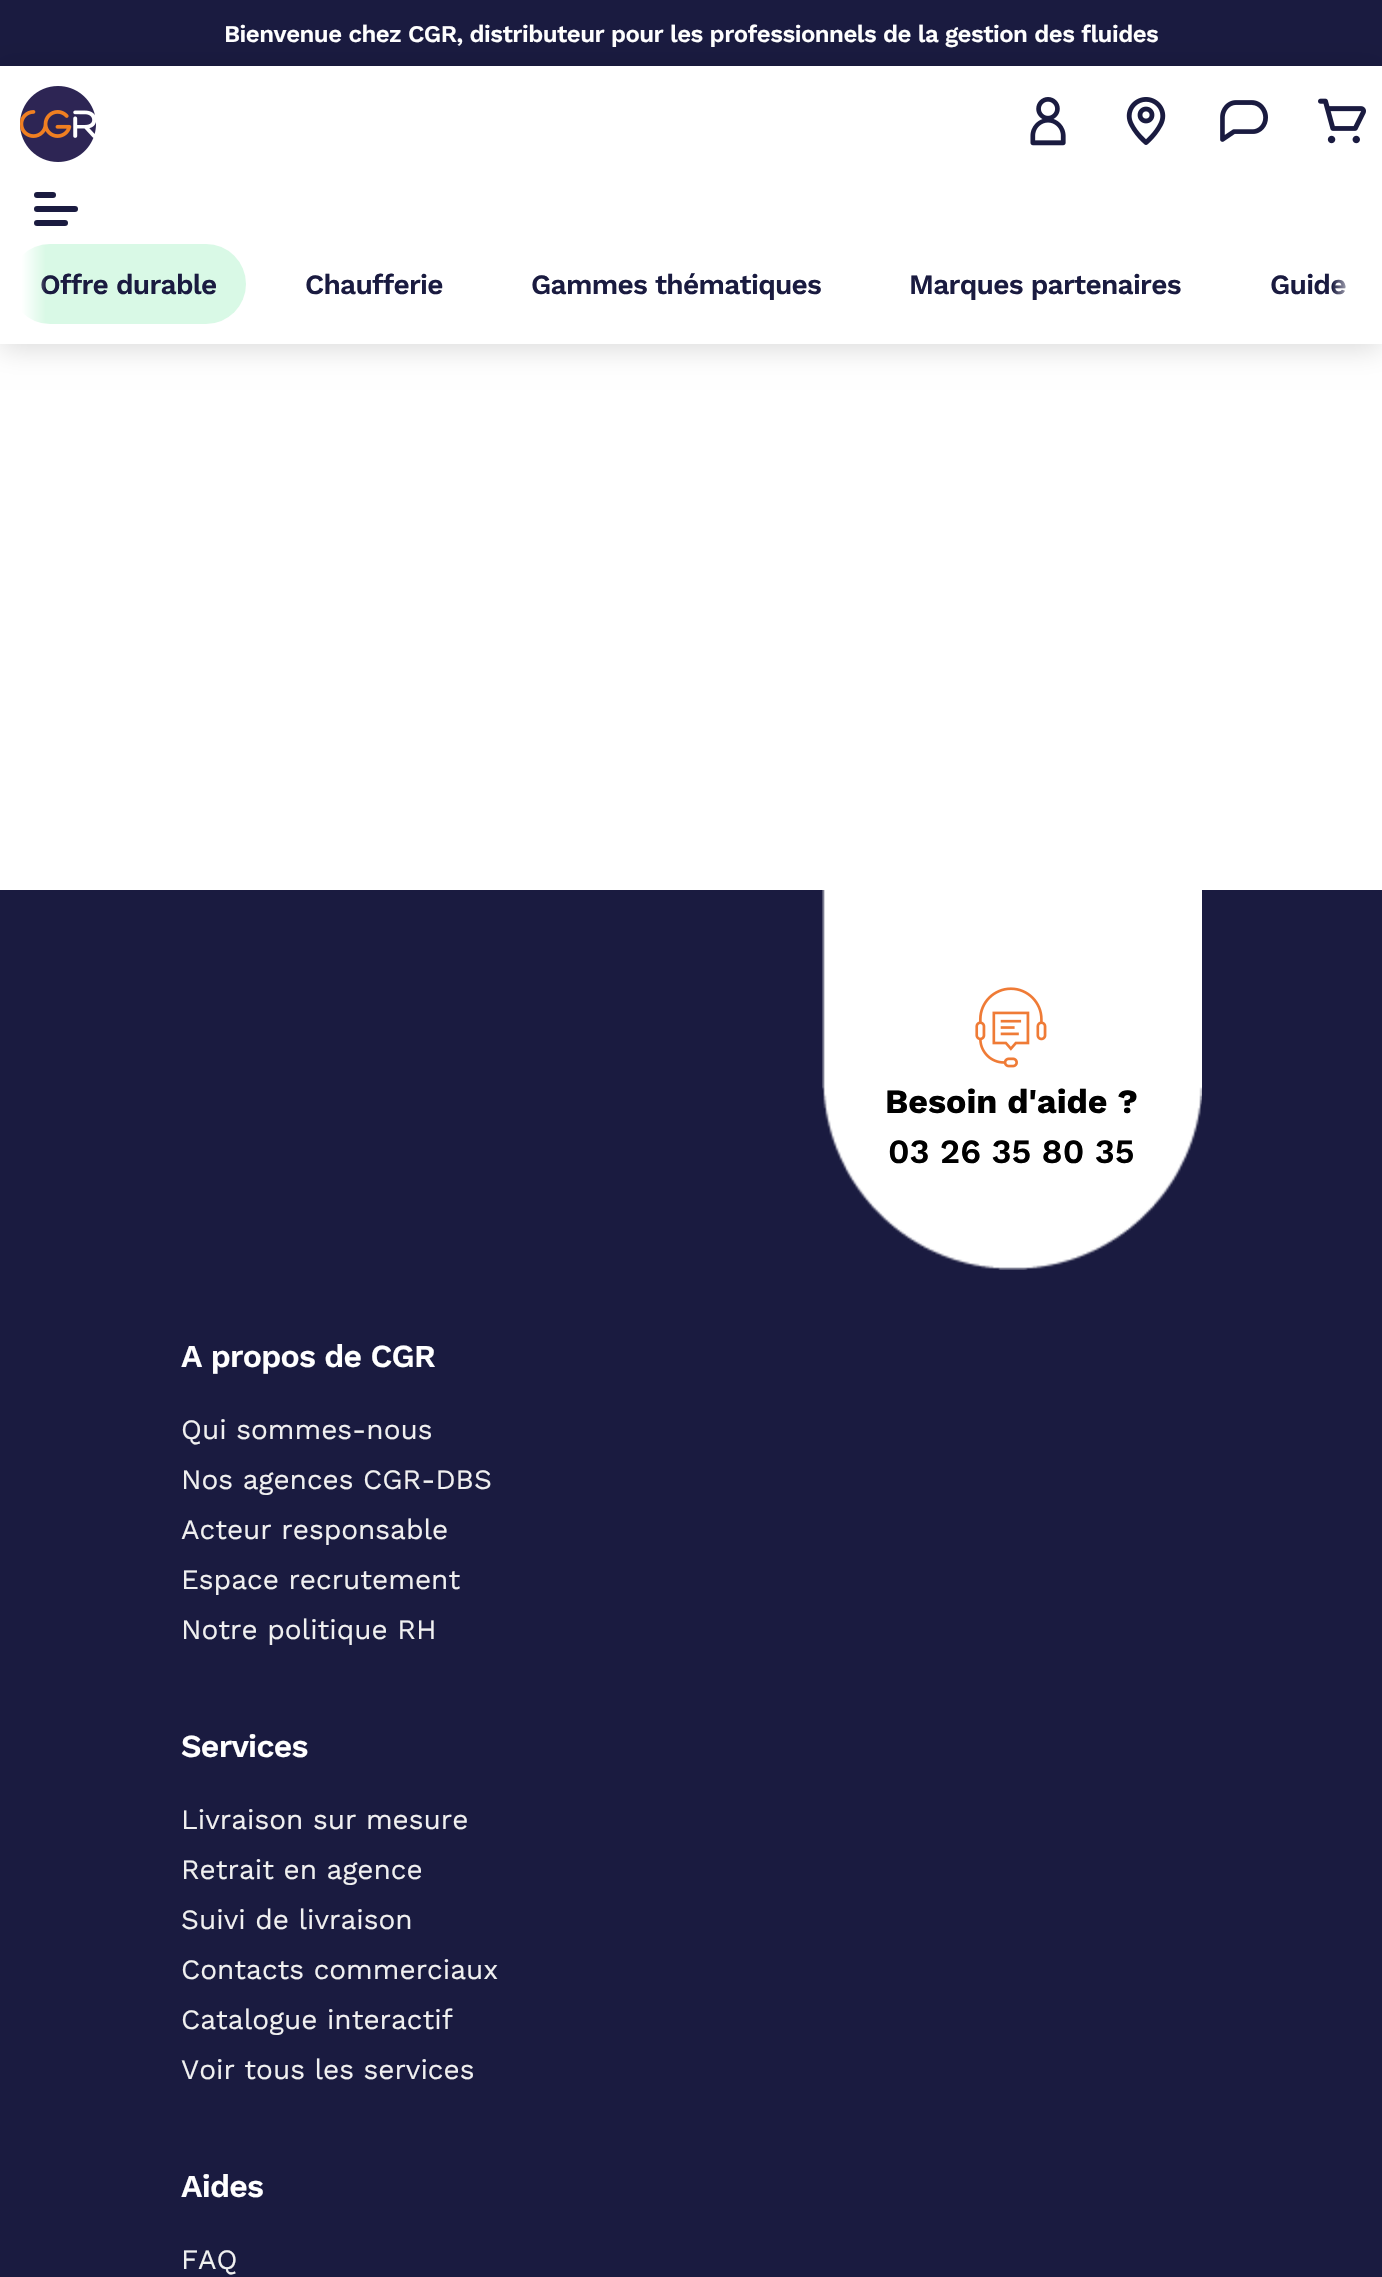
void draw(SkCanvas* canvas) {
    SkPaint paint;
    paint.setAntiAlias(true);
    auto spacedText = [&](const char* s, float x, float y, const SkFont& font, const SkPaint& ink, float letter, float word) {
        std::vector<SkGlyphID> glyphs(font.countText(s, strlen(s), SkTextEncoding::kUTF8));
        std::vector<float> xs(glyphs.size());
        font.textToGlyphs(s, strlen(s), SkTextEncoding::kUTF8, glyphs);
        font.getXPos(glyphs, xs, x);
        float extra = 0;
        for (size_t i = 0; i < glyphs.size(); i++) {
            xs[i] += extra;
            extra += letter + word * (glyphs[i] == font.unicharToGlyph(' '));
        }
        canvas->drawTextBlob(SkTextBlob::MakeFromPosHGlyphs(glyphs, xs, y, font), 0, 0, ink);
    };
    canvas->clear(0xFFFFFFFF);
    paint.setColor(0xFF1A1B40);
    canvas->drawRect(SkRect::MakeXYWH(0, 0, 1382, 66), paint);
    SkFont font1(fontMgr->matchFamilyStyle("Work Sans", SkFontStyle(600, SkFontStyle::kNormal_Width, SkFontStyle::kUpright_Slant)), 24);
    font1.setSubpixel(true);
    paint.setColor(0xFFFFFFFF);
    spacedText("Bienvenue chez CGR, distributeur pour les professionnels de la gestion des fluides", 224, 42, font1, paint, -0.52f, 0);
    canvas->save();
    canvas->clipPath(SkPathBuilder(SkPathFillType::kEvenOdd).moveTo(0, 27).lineTo(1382, 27).lineTo(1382, 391).lineTo(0, 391).close().moveTo(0, 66).lineTo(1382, 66).lineTo(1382, 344).lineTo(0, 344).close().detach(), true);
    paint.setColor(0x26000000);
    paint.setMaskFilter(SkMaskFilter::MakeBlur(kNormal_SkBlurStyle, 14));
    canvas->drawRect(SkRect::MakeXYWH(0, 70, 1382, 278), paint);
    paint.setMaskFilter(nullptr);
    canvas->restore();
    canvas->drawImageRect(SkImages::DeferredFromEncodedData(SkData::MakeFromFileName("img1.png")), SkRect::MakeXYWH(20, 86, 76, 76), SkSamplingOptions());
    canvas->drawImageRect(SkImages::DeferredFromEncodedData(SkData::MakeFromFileName("img2.png")), SkRect::MakeXYWH(1030, 97, 36, 49), SkSamplingOptions());
    canvas->drawImageRect(SkImages::DeferredFromEncodedData(SkData::MakeFromFileName("img3.png")), SkRect::MakeXYWH(1126, 97, 40, 48), SkSamplingOptions());
    canvas->drawImageRect(SkImages::DeferredFromEncodedData(SkData::MakeFromFileName("img4.png")), SkRect::MakeXYWH(1220, 100, 48, 42), SkSamplingOptions());
    canvas->drawImageRect(SkImages::DeferredFromEncodedData(SkData::MakeFromFileName("img5.png")), SkRect::MakeXYWH(1318, 98, 48, 46), SkSamplingOptions());
    paint.setColor(0xFF1A1B40);
    canvas->drawRoundRect(SkRect::MakeXYWH(34, 192, 22, 6), 3, 3, paint);
    canvas->drawRoundRect(SkRect::MakeXYWH(34, 206, 44, 6), 3, 3, paint);
    canvas->drawRoundRect(SkRect::MakeXYWH(34, 220, 34, 6), 3, 3, paint);
    paint.setColor(0xFFD9F9E6);
    canvas->drawRoundRect(SkRect::MakeXYWH(10, 244, 236, 80), 40, 40, paint);
    SkFont font2(fontMgr->matchFamilyStyle("Work Sans", SkFontStyle(600, SkFontStyle::kNormal_Width, SkFontStyle::kUpright_Slant)), 28);
    font2.setSubpixel(true);
    paint.setColor(0xFF1A1B40);
    spacedText("Offre durable", 40, 294, font2, paint, -0.7f, 0);
    {
        const SkColor colors[] = {0xFFFFFFFF, 0x00FFFFFF};
        const float stops[] = {0.5f, 1};
        const SkPoint ends[] = {{-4, 284}, {46, 284}};
        paint.setShader(SkGradientShader::MakeLinear(ends, colors, stops, 2, SkTileMode::kClamp));
        paint.setAlpha(255);
    }
    canvas->drawRect(SkRect::MakeXYWH(10, 245, 35, 78), paint);
    paint.setShader(nullptr);
    paint.setColor(0xFF1A1B40);
    spacedText("Chaufferie", 305, 294, font2, paint, -0.7f, 0);
    spacedText("Gammes thématiques", 531, 294, font2, paint, -0.7f, 0);
    spacedText("Marques partenaires", 909, 294, font2, paint, -0.7f, 0);
    spacedText("Guide", 1270, 294, font2, paint, -0.7f, 0);
    {
        const SkColor colors[] = {0xFFFFFFFF, 0x00FFFFFF};
        const float stops[] = {0.5f, 1};
        const SkPoint ends[] = {{1382, 284}, {1332, 284}};
        paint.setShader(SkGradientShader::MakeLinear(ends, colors, stops, 2, SkTileMode::kClamp));
        paint.setAlpha(255);
    }
    canvas->drawRect(SkRect::MakeXYWH(1333, 279, 12, 16), paint);
    paint.setShader(nullptr);
    paint.setColor(0xFF1A1B40);
    canvas->drawRect(SkRect::MakeXYWH(0, 890, 1382, 1387), paint);
    canvas->drawImageRect(SkImages::DeferredFromEncodedData(SkData::MakeFromFileName("img6.png")), SkRect::MakeXYWH(822, 890, 380, 380), SkSamplingOptions());
    canvas->drawImageRect(SkImages::DeferredFromEncodedData(SkData::MakeFromFileName("img7.png")), SkRect::MakeXYWH(975, 987, 72, 81), SkSamplingOptions());
    SkFont font3(fontMgr->matchFamilyStyle("Work Sans", SkFontStyle::Bold()), 34);
    font3.setSubpixel(true);
    paint.setColor(0xFF000000);
    canvas->drawString("Besoin d'aide ?", 885, 1113, font3, paint);
    SkFont font4(fontMgr->matchFamilyStyle("Work Sans", SkFontStyle(600, SkFontStyle::kNormal_Width, SkFontStyle::kUpright_Slant)), 34);
    font4.setSubpixel(true);
    canvas->drawString("03 26 35 80 35", 888, 1163, font4, paint);
    SkFont font5(fontMgr->matchFamilyStyle("Work Sans", SkFontStyle(600, SkFontStyle::kNormal_Width, SkFontStyle::kUpright_Slant)), 32);
    font5.setSubpixel(true);
    paint.setColor(0xFFFFFFFF);
    spacedText("A propos de CGR", 181, 1367, font5, paint, -0.75f, 0);
    SkFont font6(fontMgr->matchFamilyStyle("Work Sans", SkFontStyle::Normal()), 28);
    font6.setSubpixel(true);
    paint.setColor(0xFFF0F0F0);
    canvas->drawString("Qui sommes-nous", 181, 1439, font6, paint);
    canvas->drawString("Nos agences CGR-DBS", 181, 1489, font6, paint);
    canvas->drawString("Acteur responsable", 181, 1539, font6, paint);
    canvas->drawString("Espace recrutement", 181, 1589, font6, paint);
    canvas->drawString("Notre politique RH", 181, 1639, font6, paint);
    paint.setColor(0xFFFFFFFF);
    spacedText("Services", 181, 1757, font5, paint, -0.75f, 0);
    paint.setColor(0xFFF0F0F0);
    canvas->drawString("Livraison sur mesure", 181, 1829, font6, paint);
    canvas->drawString("Retrait en agence", 181, 1879, font6, paint);
    canvas->drawString("Suivi de livraison", 181, 1929, font6, paint);
    canvas->drawString("Contacts commerciaux", 181, 1979, font6, paint);
    canvas->drawString("Catalogue interactif", 181, 2029, font6, paint);
    canvas->drawString("Voir tous les services", 181, 2079, font6, paint);
    paint.setColor(0xFFFFFFFF);
    spacedText("Aides", 181, 2197, font5, paint, -0.75f, 0);
    paint.setColor(0xFFF0F0F0);
    canvas->drawString("FAQ", 181, 2269, font6, paint);
}
